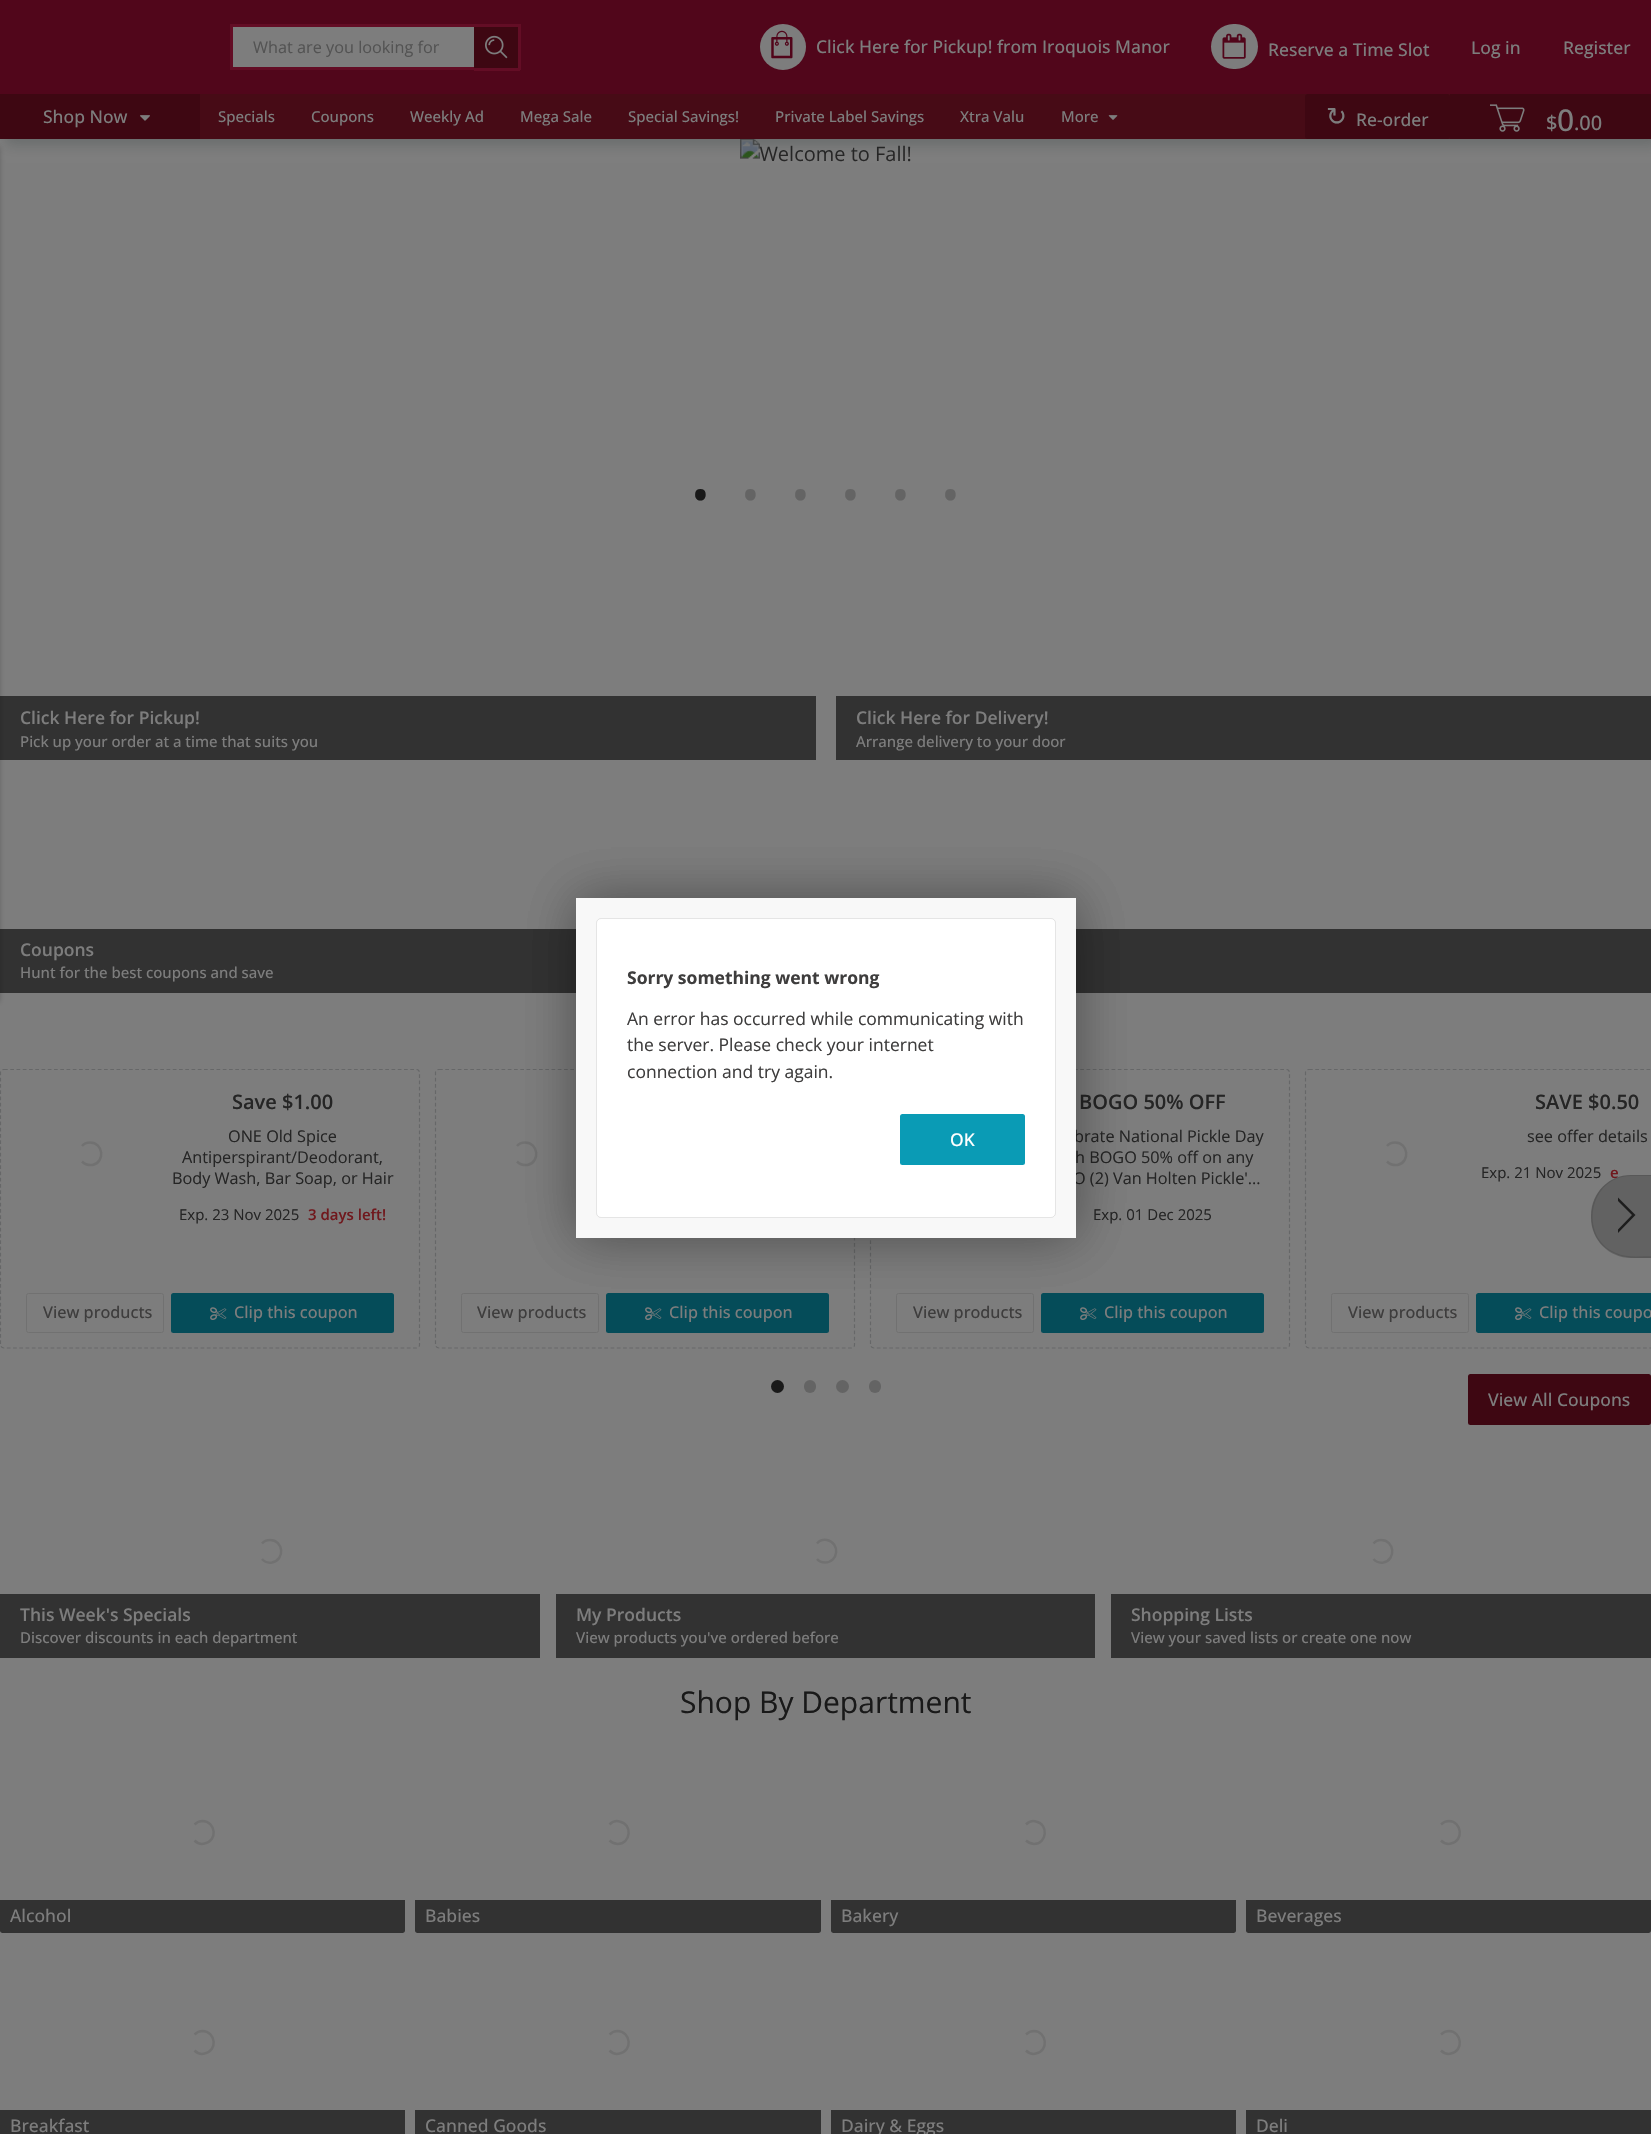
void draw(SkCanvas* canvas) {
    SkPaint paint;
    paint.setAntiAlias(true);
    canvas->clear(0xFF7D7D7D);
    canvas->drawImageRect(SkImages::DeferredFromEncodedData(SkData::MakeFromFileName("img7.png")), SkRect::MakeXYWH(740, 139, 171, 23), SkSamplingOptions());
    paint.setColor(0x33172727);
    paint.setMaskFilter(SkMaskFilter::MakeBlur(kNormal_SkBlurStyle, 6));
    canvas->drawRect(SkRect::MakeXYWH(6, 6, 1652, 139), paint);
    paint.setMaskFilter(nullptr);
    paint.setColor(0xFF51061B);
    canvas->drawRect(SkRect::MakeXYWH(0, 0, 1651, 94), paint);
    paint.setColor(0xFF7D7D7D);
    canvas->drawRect(SkRect::MakeXYWH(233, 27, 241, 40), paint);
    paint.setStyle(SkPaint::kStroke_Style);
    paint.setStrokeWidth(3);
    paint.setColor(0xFF630D25);
    canvas->drawRect(SkRect::MakeXYWH(231.5f, 25.5f, 287, 43), paint);
    SkFont font1(fontMgr->matchFamilyStyle("Open Sans", SkFontStyle::Normal()), 16.25f);
    font1.setSubpixel(true);
    paint.setStyle(SkPaint::kFill_Style);
    paint.setColor(0xFF535353);
    canvas->drawString("What are you looking for", 253, 53, font1, paint);
    paint.setColor(0xFF3E0712);
    canvas->drawRect(SkRect::MakeXYWH(474, 27, 44, 41), paint);
    paint.setColor(0xFF630D25);
    canvas->drawRect(SkRect::MakeXYWH(520, 24, 1, 46), paint);
    canvas->drawRect(SkRect::MakeXYWH(474, 70, 46, 1), paint);
    canvas->drawImageRect(SkImages::DeferredFromEncodedData(SkData::MakeFromFileName("img1.png")), SkRect::MakeXYWH(485, 35, 23, 24), SkSamplingOptions());
    paint.setColor(0xFF7D7D7D);
    canvas->drawCircle(783, 47, 23, paint);
    canvas->drawImageRect(SkImages::DeferredFromEncodedData(SkData::MakeFromFileName("img2.png")), SkRect::MakeXYWH(771, 30, 22, 29), SkSamplingOptions());
    SkFont font2(fontMgr->matchFamilyStyle("Open Sans", SkFontStyle(500, SkFontStyle::kNormal_Width, SkFontStyle::kUpright_Slant)), 17.5f);
    font2.setSubpixel(true);
    canvas->drawString("Click Here for Pickup! from Iroquois Manor", 816, 53, font2, paint);
    canvas->drawRoundRect(SkRect::MakeXYWH(1211, 24, 47, 45), 22.5f, 22.5f, paint);
    canvas->drawImageRect(SkImages::DeferredFromEncodedData(SkData::MakeFromFileName("img3.png")), SkRect::MakeXYWH(1222, 33, 24, 26), SkSamplingOptions());
    canvas->drawString("Reserve a Time Slot", 1268, 56, font2, paint);
    canvas->drawString("Log in", 1471, 54, font2, paint);
    canvas->drawString("Register", 1563, 54, font2, paint);
    paint.setColor(0xFF470B16);
    canvas->drawRect(SkRect::MakeXYWH(200, 94, 1250, 45), paint);
    paint.setColor(0xFF3E0712);
    canvas->drawRect(SkRect::MakeXYWH(0, 94, 200, 45), paint);
    paint.setColor(0xFF7D7D7D);
    canvas->drawString("Shop Now", 43, 123, font2, paint);
    canvas->drawImageRect(SkImages::DeferredFromEncodedData(SkData::MakeFromFileName("img4.png")), SkRect::MakeXYWH(140, 115, 10, 6), SkSamplingOptions());
    paint.setColor(0xFF323232);
    canvas->drawRect(SkRect::MakeXYWH(0, 696, 816, 64), paint);
    canvas->drawRect(SkRect::MakeXYWH(0, 929, 576, 64), paint);
    paint.setColor(0x33000000);
    paint.setMaskFilter(SkMaskFilter::MakeBlur(kNormal_SkBlurStyle, 2.5f));
    canvas->drawRoundRect(SkRect::MakeXYWH(-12, 146, 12, 857), 4, 4, paint);
    paint.setMaskFilter(nullptr);
    SkFont font3(fontMgr->matchFamilyStyle("Open Sans", SkFontStyle(500, SkFontStyle::kNormal_Width, SkFontStyle::kUpright_Slant)), 15);
    font3.setSubpixel(true);
    paint.setColor(0xFF7D7D7D);
    canvas->drawString("Specials", 218, 122, font3, paint);
    canvas->drawString("Coupons", 311, 122, font3, paint);
    canvas->drawString("Weekly Ad", 410, 122, font3, paint);
    canvas->drawString("Mega Sale", 520, 122, font3, paint);
    canvas->drawString("Special Savings!", 628, 122, font3, paint);
    canvas->drawString("Private Label Savings", 775, 122, font3, paint);
    canvas->drawString("Xtra Valu", 960, 122, font3, paint);
    canvas->drawString("More", 1061, 122, font3, paint);
    canvas->drawImageRect(SkImages::DeferredFromEncodedData(SkData::MakeFromFileName("img5.png")), SkRect::MakeXYWH(1108, 115, 10, 5), SkSamplingOptions());
    paint.setColor(0xFF3E0712);
    canvas->drawRoundRect(SkRect::MakeXYWH(1305, 94, 145, 45), 2.5f, 2.5f, paint);
    SkFont font4(fontMgr->matchFamilyStyle("DejaVu Sans", SkFontStyle::Normal()), 25);
    font4.setSubpixel(true);
    paint.setColor(0xFF7D7D7D);
    canvas->drawString("↻", 1326, 125, font4, paint);
    canvas->drawString("Re-order", 1356, 126, font2, paint);
    paint.setColor(0xFF3E0712);
    canvas->drawRect(SkRect::MakeXYWH(1450, 94, 201, 45), paint);
    canvas->drawImageRect(SkImages::DeferredFromEncodedData(SkData::MakeFromFileName("img6.png")), SkRect::MakeXYWH(1490, 104, 35, 28), SkSamplingOptions());
    SkFont font5(fontMgr->matchFamilyStyle("Open Sans", SkFontStyle(500, SkFontStyle::kNormal_Width, SkFontStyle::kUpright_Slant)), 20);
    font5.setSubpixel(true);
    paint.setColor(0xFF7D7D7D);
    canvas->drawString("$", 1546, 130, font5, paint);
    SkFont font6(fontMgr->matchFamilyStyle("Open Sans", SkFontStyle(500, SkFontStyle::kNormal_Width, SkFontStyle::kUpright_Slant)), 30);
    font6.setSubpixel(true);
    canvas->drawString("0", 1557, 131, font6, paint);
    canvas->drawString(".00", 1574, 130, font5, paint);
    SkFont font7(fontMgr->matchFamilyStyle("Open Sans", SkFontStyle::Normal()), 50);
    font7.setSubpixel(true);
    paint.setColor(0xFF191919);
    canvas->drawString("•", 691, 513, font7, paint);
    paint.setColor(0xFF646464);
    canvas->drawString("•", 741, 513, font7, paint);
    canvas->drawString("•", 791, 513, font7, paint);
    canvas->drawString("•", 841, 513, font7, paint);
    canvas->drawString("•", 891, 513, font7, paint);
    canvas->drawString("•", 941, 513, font7, paint);
    SkFont font8(fontMgr->matchFamilyStyle("Open Sans", SkFontStyle(600, SkFontStyle::kNormal_Width, SkFontStyle::kUpright_Slant)), 17.5f);
    font8.setSubpixel(true);
    paint.setColor(0xFF7D7D7D);
    canvas->drawString("Click Here for Pickup!", 20, 724, font8, paint);
    canvas->drawString("Pick up your order at a time that suits you", 20, 747, font3, paint);
    paint.setColor(0xFF323232);
    canvas->drawRect(SkRect::MakeXYWH(836, 696, 815, 64), paint);
    paint.setColor(0xFF7D7D7D);
    canvas->drawString("Click Here for Delivery!", 856, 724, font8, paint);
    canvas->drawString("Arrange delivery to your door", 856, 747, font3, paint);
    canvas->drawString("Coupons", 20, 956, font8, paint);
    canvas->drawString("Hunt for the best coupons and save", 20, 978, font3, paint);
    paint.setColor(0xFF323232);
    canvas->drawRect(SkRect::MakeXYWH(1076, 929, 575, 64), paint);
    canvas->save();
    canvas->clipRect(SkRect::MakeXYWH(0, 1069, 1651, 280));
    paint.setStyle(SkPaint::kStroke_Style);
    paint.setStrokeWidth(1.2f);
    paint.setColor(0xFF666768);
    paint.setPathEffect(SkDashPathEffect::Make({{3.75f, 2.5f}}, 0));
    canvas->drawPath(SkPathBuilder().moveTo(4, 1069.5f).lineTo(416.5f, 1069.5f).cubicTo(418, 1069.5f, 419.5f, 1071, 419.5f, 1072.5f).lineTo(419.5f, 1345).cubicTo(419.5f, 1346.5f, 418, 1348, 416.5f, 1348).lineTo(4, 1348).cubicTo(2, 1348, 0.5f, 1346.5f, 0.5f, 1345).lineTo(0.5f, 1072.5f).cubicTo(0.5f, 1071, 2, 1069.5f, 4, 1069.5f).close().detach(), paint);
    paint.setPathEffect(nullptr);
    canvas->restore();
    paint.setStrokeWidth(2.5f);
    paint.setColor(0xFF717171);
    canvas->drawPath(SkPathBuilder().moveTo(82, 1146).cubicTo(84, 1143.5f, 87, 1142.5f, 90, 1142.5f).cubicTo(103.5f, 1142.5f, 105.5f, 1162, 92.5f, 1165).cubicTo(88.5f, 1165.5f, 85, 1164.5f, 82, 1161.5f).detach(), paint);
    SkFont font9(fontMgr->matchFamilyStyle("Open Sans", SkFontStyle(600, SkFontStyle::kNormal_Width, SkFontStyle::kUpright_Slant)), 20);
    font9.setSubpixel(true);
    paint.setStyle(SkPaint::kFill_Style);
    paint.setColor(0xFF252525);
    canvas->drawString("Save $1.00", 232, 1109, font9, paint);
    canvas->drawString("ONE Old Spice", 228, 1142, font1, paint);
    canvas->drawString("Antiperspirant/Deodorant,", 182, 1163, font1, paint);
    canvas->drawString("Body Wash, Bar Soap, or Hair", 172, 1184, font1, paint);
    SkFont font10(fontMgr->matchFamilyStyle("Open Sans", SkFontStyle::Normal()), 15);
    font10.setSubpixel(true);
    canvas->drawString("Exp. 23 Nov 2025", 179, 1220, font10, paint);
    SkFont font11(fontMgr->matchFamilyStyle("Open Sans", SkFontStyle(600, SkFontStyle::kNormal_Width, SkFontStyle::kUpright_Slant)), 15);
    font11.setSubpixel(true);
    paint.setColor(0xFF70181D);
    canvas->drawString("3 days left!", 308, 1220, font11, paint);
    paint.setStyle(SkPaint::kStroke_Style);
    paint.setStrokeWidth(1);
    paint.setColor(0xFF717171);
    canvas->drawRoundRect(SkRect::MakeXYWH(26.5f, 1293.5f, 137, 39), 2, 2, paint);
    SkFont font12(fontMgr->matchFamilyStyle("Open Sans", SkFontStyle(500, SkFontStyle::kNormal_Width, SkFontStyle::kUpright_Slant)), 16.25f);
    font12.setSubpixel(true);
    paint.setStyle(SkPaint::kFill_Style);
    paint.setColor(0xFF3E3D3D);
    canvas->drawString("View products", 43, 1318, font12, paint);
    paint.setColor(0xFF054C59);
    canvas->drawRoundRect(SkRect::MakeXYWH(171, 1293, 223, 40), 2.5f, 2.5f, paint);
    canvas->drawImageRect(SkImages::DeferredFromEncodedData(SkData::MakeFromFileName("img8.png")), SkRect::MakeXYWH(210, 1307, 17, 13), SkSamplingOptions());
    paint.setColor(0xFF7D7D7D);
    canvas->drawString("Clip this coupon", 234, 1318, font12, paint);
    canvas->save();
    canvas->clipRect(SkRect::MakeXYWH(0, 1069, 1651, 280));
    paint.setStyle(SkPaint::kStroke_Style);
    paint.setStrokeWidth(1.2f);
    paint.setColor(0xFF666768);
    paint.setPathEffect(SkDashPathEffect::Make({{3.75f, 2.5f}}, 0));
    canvas->drawPath(SkPathBuilder().moveTo(439, 1069.5f).lineTo(851.5f, 1069.5f).cubicTo(853, 1069.5f, 854.5f, 1071, 854.5f, 1072.5f).lineTo(854.5f, 1345).cubicTo(854.5f, 1346.5f, 853, 1348, 851.5f, 1348).lineTo(439, 1348).cubicTo(437, 1348, 435.5f, 1346.5f, 435.5f, 1345).lineTo(435.5f, 1072.5f).cubicTo(435.5f, 1071, 437, 1069.5f, 439, 1069.5f).close().detach(), paint);
    paint.setPathEffect(nullptr);
    canvas->restore();
    paint.setStrokeWidth(2.5f);
    paint.setColor(0xFF717171);
    canvas->drawPath(SkPathBuilder().moveTo(517, 1146).cubicTo(519, 1143.5f, 522, 1142.5f, 525, 1142.5f).cubicTo(538.5f, 1142.5f, 540.5f, 1162, 527.5f, 1165).cubicTo(523.5f, 1165.5f, 520, 1164.5f, 517, 1161.5f).detach(), paint);
    paint.setStrokeWidth(1);
    canvas->drawRoundRect(SkRect::MakeXYWH(461.5f, 1293.5f, 137, 39), 2, 2, paint);
    paint.setStyle(SkPaint::kFill_Style);
    paint.setColor(0xFF3E3D3D);
    canvas->drawString("View products", 477, 1318, font12, paint);
    paint.setColor(0xFF054C59);
    canvas->drawRoundRect(SkRect::MakeXYWH(606, 1293, 223, 40), 2.5f, 2.5f, paint);
    canvas->drawImageRect(SkImages::DeferredFromEncodedData(SkData::MakeFromFileName("img8.png")), SkRect::MakeXYWH(645, 1307, 17, 13), SkSamplingOptions());
    paint.setColor(0xFF7D7D7D);
    canvas->drawString("Clip this coupon", 669, 1318, font12, paint);
    canvas->save();
    canvas->clipRect(SkRect::MakeXYWH(0, 1069, 1651, 280));
    paint.setStyle(SkPaint::kStroke_Style);
    paint.setStrokeWidth(1.2f);
    paint.setColor(0xFF666768);
    paint.setPathEffect(SkDashPathEffect::Make({{3.75f, 2.5f}}, 0));
    canvas->drawPath(SkPathBuilder().moveTo(874, 1069.5f).lineTo(1286.5f, 1069.5f).cubicTo(1288, 1069.5f, 1289.5f, 1071, 1289.5f, 1072.5f).lineTo(1289.5f, 1345).cubicTo(1289.5f, 1346.5f, 1288, 1348, 1286.5f, 1348).lineTo(874, 1348).cubicTo(872, 1348, 870.5f, 1346.5f, 870.5f, 1345).lineTo(870.5f, 1072.5f).cubicTo(870.5f, 1071, 872, 1069.5f, 874, 1069.5f).close().detach(), paint);
    paint.setPathEffect(nullptr);
    canvas->restore();
    paint.setStyle(SkPaint::kFill_Style);
    paint.setColor(0xFF252525);
    canvas->drawString("BOGO 50% OFF", 1079, 1109, font9, paint);
    canvas->drawString("brate National Pickle Day", 1074, 1142, font1, paint);
    canvas->drawString("h BOGO 50% off on any", 1075, 1163, font1, paint);
    canvas->drawString("O (2) Van Holten Pickle'...", 1073, 1184, font1, paint);
    canvas->drawString("Exp. 01 Dec 2025", 1093, 1220, font10, paint);
    paint.setStyle(SkPaint::kStroke_Style);
    paint.setStrokeWidth(1);
    paint.setColor(0xFF717171);
    canvas->drawRoundRect(SkRect::MakeXYWH(896.5f, 1293.5f, 137, 39), 2, 2, paint);
    paint.setStyle(SkPaint::kFill_Style);
    paint.setColor(0xFF3E3D3D);
    canvas->drawString("View products", 913, 1318, font12, paint);
    paint.setColor(0xFF054C59);
    canvas->drawRoundRect(SkRect::MakeXYWH(1041, 1293, 223, 40), 2.5f, 2.5f, paint);
    canvas->drawImageRect(SkImages::DeferredFromEncodedData(SkData::MakeFromFileName("img8.png")), SkRect::MakeXYWH(1080, 1307, 17, 13), SkSamplingOptions());
    paint.setColor(0xFF7D7D7D);
    canvas->drawString("Clip this coupon", 1104, 1318, font12, paint);
    canvas->save();
    canvas->clipRect(SkRect::MakeXYWH(0, 1069, 1651, 280));
    paint.setStyle(SkPaint::kStroke_Style);
    paint.setStrokeWidth(1.2f);
    paint.setColor(0xFF666768);
    paint.setPathEffect(SkDashPathEffect::Make({{3.75f, 2.5f}}, 0));
    canvas->drawPath(SkPathBuilder().moveTo(1309, 1069.5f).lineTo(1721.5f, 1069.5f).cubicTo(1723, 1069.5f, 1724.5f, 1071, 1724.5f, 1072.5f).lineTo(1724.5f, 1345).cubicTo(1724.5f, 1346.5f, 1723, 1348, 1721.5f, 1348).lineTo(1309, 1348).cubicTo(1307, 1348, 1305.5f, 1346.5f, 1305.5f, 1345).lineTo(1305.5f, 1072.5f).cubicTo(1305.5f, 1071, 1307, 1069.5f, 1309, 1069.5f).close().detach(), paint);
    paint.setPathEffect(nullptr);
    canvas->restore();
    paint.setStrokeWidth(2.5f);
    paint.setColor(0xFF717171);
    canvas->drawPath(SkPathBuilder().moveTo(1387, 1146).cubicTo(1389, 1143.5f, 1392, 1142.5f, 1395, 1142.5f).cubicTo(1408.5f, 1142.5f, 1410.5f, 1162, 1397.5f, 1165).cubicTo(1393.5f, 1165.5f, 1390, 1164.5f, 1387, 1161.5f).detach(), paint);
    paint.setStyle(SkPaint::kFill_Style);
    paint.setColor(0xFF252525);
    canvas->drawString("SAVE $0.50", 1535, 1109, font9, paint);
    canvas->drawString("see offer details", 1527, 1142, font1, paint);
    canvas->drawString("Exp. 21 Nov 2025", 1481, 1178, font10, paint);
    paint.setColor(0xFF70181D);
    canvas->drawString("e", 1610, 1178, font11, paint);
    paint.setStyle(SkPaint::kStroke_Style);
    paint.setStrokeWidth(1);
    paint.setColor(0xFF717171);
    canvas->drawRoundRect(SkRect::MakeXYWH(1331.5f, 1293.5f, 137, 39), 2, 2, paint);
    paint.setStyle(SkPaint::kFill_Style);
    paint.setColor(0xFF3E3D3D);
    canvas->drawString("View products", 1348, 1318, font12, paint);
    paint.setColor(0xFF054C59);
    canvas->drawPath(SkPathBuilder().moveTo(1478.5f, 1293).lineTo(1651, 1293).lineTo(1651, 1333).lineTo(1478.5f, 1333).cubicTo(1477, 1333, 1476, 1332, 1476, 1330.5f).lineTo(1476, 1295.5f).cubicTo(1476, 1294, 1477, 1293, 1478.5f, 1293).close().detach(), paint);
    canvas->drawImageRect(SkImages::DeferredFromEncodedData(SkData::MakeFromFileName("img8.png")), SkRect::MakeXYWH(1515, 1307, 17, 13), SkSamplingOptions());
    paint.setColor(0xFF7D7D7D);
    canvas->drawString("Clip this coupo", 1539, 1318, font12, paint);
    paint.setColor(0xFF626262);
    canvas->drawPath(SkPathBuilder().moveTo(1631, 1175).lineTo(1651, 1175).lineTo(1651, 1258).lineTo(1631, 1258).cubicTo(1609, 1258, 1591, 1240, 1591, 1218).lineTo(1591, 1215).cubicTo(1591, 1193, 1609, 1175, 1631, 1175).close().detach(), paint);
    paint.setColor(0x1A000000);
    canvas->drawPath(SkPathBuilder(SkPathFillType::kEvenOdd).moveTo(1631, 1175).lineTo(1651, 1175).lineTo(1651, 1258).cubicTo(1640, 1258, 1627, 1259, 1616, 1254).cubicTo(1576, 1238, 1587, 1175, 1631, 1175).close().moveTo(1631, 1176).lineTo(1651, 1176).lineTo(1651, 1256).cubicTo(1640, 1256, 1627, 1258, 1616, 1253).cubicTo(1578, 1237, 1589, 1176, 1631, 1176).close().detach(), paint);
    paint.setColor(0xFF1D1D1D);
    canvas->drawPath(SkPathBuilder().moveTo(1635.5f, 1215).lineTo(1618, 1197.5f).lineTo(1618, 1201).lineTo(1632, 1215).lineTo(1618, 1229.5f).lineTo(1618, 1233).close().detach(), paint);
    paint.setColor(0xFF191919);
    canvas->drawCircle(777.5f, 1386.5f, 6.5f, paint);
    paint.setColor(0xFF646464);
    canvas->drawRoundRect(SkRect::MakeXYWH(804, 1380, 12, 13), 6, 6, paint);
    canvas->drawCircle(842.5f, 1386.5f, 6.5f, paint);
    canvas->drawRoundRect(SkRect::MakeXYWH(869, 1380, 12, 13), 6, 6, paint);
    paint.setColor(0xFF3E0712);
    canvas->drawRoundRect(SkRect::MakeXYWH(1468, 1374, 183, 51), 2.5f, 2.5f, paint);
    paint.setColor(0xFF7D7D7D);
    canvas->drawString("View All Coupons", 1488, 1406, font2, paint);
    paint.setStyle(SkPaint::kStroke_Style);
    paint.setStrokeWidth(2.5f);
    paint.setColor(0xFF717171);
    canvas->drawPath(SkPathBuilder().moveTo(262, 1543.5f).cubicTo(264, 1541, 267, 1540, 270, 1540).cubicTo(283.5f, 1540, 285.5f, 1559.5f, 272, 1562.5f).cubicTo(268.5f, 1563, 264.5f, 1562, 262, 1559).detach(), paint);
    paint.setStyle(SkPaint::kFill_Style);
    paint.setColor(0xFF323232);
    canvas->drawRect(SkRect::MakeXYWH(0, 1594, 540, 64), paint);
    paint.setColor(0xFF7D7D7D);
    canvas->drawString("This Week's Specials", 20, 1621, font8, paint);
    canvas->drawString("Discover discounts in each department", 20, 1643, font3, paint);
    paint.setStyle(SkPaint::kStroke_Style);
    paint.setColor(0xFF717171);
    canvas->drawPath(SkPathBuilder().moveTo(817, 1543.5f).cubicTo(819.5f, 1540.5f, 823.5f, 1539.5f, 827, 1540).cubicTo(840.5f, 1543, 838.5f, 1562.5f, 825, 1562.5f).cubicTo(822, 1562.5f, 819, 1561.5f, 817, 1559).detach(), paint);
    paint.setStyle(SkPaint::kFill_Style);
    paint.setColor(0xFF323232);
    canvas->drawRect(SkRect::MakeXYWH(556, 1594, 539, 64), paint);
    paint.setColor(0xFF7D7D7D);
    canvas->drawString("My Products", 576, 1621, font8, paint);
    canvas->drawString("View products you've ordered before", 576, 1643, font3, paint);
    paint.setStyle(SkPaint::kStroke_Style);
    paint.setColor(0xFF717171);
    canvas->drawPath(SkPathBuilder().moveTo(1373.5f, 1543.5f).cubicTo(1375.5f, 1541, 1378.5f, 1540, 1381, 1540).cubicTo(1394.5f, 1540, 1396.5f, 1559.5f, 1383.5f, 1562.5f).cubicTo(1380, 1563, 1376, 1562, 1373.5f, 1559).detach(), paint);
    paint.setStyle(SkPaint::kFill_Style);
    paint.setColor(0xFF323232);
    canvas->drawRect(SkRect::MakeXYWH(1111, 1594, 540, 64), paint);
    paint.setColor(0xFF7D7D7D);
    canvas->drawString("Shopping Lists", 1131, 1621, font8, paint);
    canvas->drawString("View your saved lists or create one now", 1131, 1643, font3, paint);
    SkFont font13(fontMgr->matchFamilyStyle("Open Sans", SkFontStyle::Normal()), 30);
    font13.setSubpixel(true);
    paint.setColor(0xFF191919);
    canvas->drawString("Shop By Department", 680, 1713, font13, paint);
    paint.setStyle(SkPaint::kStroke_Style);
    paint.setColor(0xFF717171);
    canvas->drawPath(SkPathBuilder().moveTo(194.5f, 1824.5f).cubicTo(196.5f, 1822.5f, 199.5f, 1821, 202.5f, 1821).cubicTo(216, 1821.5f, 218, 1841, 204.5f, 1843.5f).cubicTo(201, 1844.5f, 197, 1843, 194.5f, 1840.5f).detach(), paint);
    paint.setStyle(SkPaint::kFill_Style);
    paint.setColor(0xFF323232);
    canvas->drawPath(SkPathBuilder().moveTo(0, 1900).lineTo(405, 1900).lineTo(405, 1930.5f).cubicTo(405, 1932, 404, 1933, 402.5f, 1933).lineTo(2.5f, 1933).cubicTo(1, 1933, 0, 1932, 0, 1930.5f).close().detach(), paint);
    paint.setColor(0xFF7D7D7D);
    canvas->drawString("Alcohol", 10, 1922, font2, paint);
    paint.setStyle(SkPaint::kStroke_Style);
    paint.setColor(0xFF717171);
    canvas->drawPath(SkPathBuilder().moveTo(609.5f, 1824.5f).cubicTo(612, 1822, 616, 1820.5f, 619.5f, 1821.5f).cubicTo(633, 1824, 631, 1844, 617.5f, 1844).cubicTo(614.5f, 1843.5f, 611.5f, 1842.5f, 609.5f, 1840.5f).detach(), paint);
    paint.setStyle(SkPaint::kFill_Style);
    paint.setColor(0xFF323232);
    canvas->drawPath(SkPathBuilder().moveTo(415, 1900).lineTo(821, 1900).lineTo(821, 1930.5f).cubicTo(821, 1932, 820, 1933, 818.5f, 1933).lineTo(417.5f, 1933).cubicTo(416, 1933, 415, 1932, 415, 1930.5f).close().detach(), paint);
    paint.setColor(0xFF7D7D7D);
    canvas->drawString("Babies", 425, 1922, font2, paint);
    paint.setStyle(SkPaint::kStroke_Style);
    paint.setColor(0xFF717171);
    canvas->drawPath(SkPathBuilder().moveTo(1026, 1824.5f).cubicTo(1028.5f, 1822, 1032.5f, 1820.5f, 1036, 1821.5f).cubicTo(1049, 1824, 1047, 1844, 1034, 1844).cubicTo(1031, 1843.5f, 1028, 1842.5f, 1026, 1840.5f).detach(), paint);
    paint.setStyle(SkPaint::kFill_Style);
    paint.setColor(0xFF323232);
    canvas->drawPath(SkPathBuilder().moveTo(831, 1900).lineTo(1236, 1900).lineTo(1236, 1930.5f).cubicTo(1236, 1932, 1235, 1933, 1233.5f, 1933).lineTo(833.5f, 1933).cubicTo(832, 1933, 831, 1932, 831, 1930.5f).close().detach(), paint);
    paint.setColor(0xFF7D7D7D);
    canvas->drawString("Bakery", 841, 1922, font2, paint);
    paint.setStyle(SkPaint::kStroke_Style);
    paint.setColor(0xFF717171);
    canvas->drawPath(SkPathBuilder().moveTo(1441, 1824.5f).cubicTo(1443, 1822.5f, 1446, 1821, 1449, 1821).cubicTo(1462, 1821.5f, 1464, 1841, 1451, 1843.5f).cubicTo(1447.5f, 1844.5f, 1443.5f, 1843, 1441, 1840.5f).detach(), paint);
    paint.setStyle(SkPaint::kFill_Style);
    paint.setColor(0xFF323232);
    canvas->drawPath(SkPathBuilder().moveTo(1246, 1900).lineTo(1651, 1900).lineTo(1651, 1930.5f).cubicTo(1651, 1932, 1650, 1933, 1648.5f, 1933).lineTo(1248.5f, 1933).cubicTo(1247, 1933, 1246, 1932, 1246, 1930.5f).close().detach(), paint);
    paint.setColor(0xFF7D7D7D);
    canvas->drawString("Beverages", 1256, 1922, font2, paint);
    paint.setStyle(SkPaint::kStroke_Style);
    paint.setColor(0xFF717171);
    canvas->drawPath(SkPathBuilder().moveTo(194.5f, 2034.5f).cubicTo(196.5f, 2032.5f, 199.5f, 2031, 202.5f, 2031).cubicTo(216, 2031.5f, 218, 2051, 204.5f, 2053.5f).cubicTo(201, 2054.5f, 197, 2053, 194.5f, 2050.5f).detach(), paint);
    paint.setStyle(SkPaint::kFill_Style);
    paint.setColor(0xFF323232);
    canvas->drawRect(SkRect::MakeXYWH(0, 2110, 405, 24), paint);
    paint.setColor(0xFF7D7D7D);
    canvas->drawString("Breakfast", 10, 2132, font2, paint);
    paint.setStyle(SkPaint::kStroke_Style);
    paint.setColor(0xFF717171);
    canvas->drawPath(SkPathBuilder().moveTo(609.5f, 2034.5f).cubicTo(611.5f, 2032.5f, 614.5f, 2031, 617.5f, 2031).cubicTo(631, 2031.5f, 633, 2051, 619.5f, 2053.5f).cubicTo(616, 2054.5f, 612, 2053, 609.5f, 2050.5f).detach(), paint);
    paint.setStyle(SkPaint::kFill_Style);
    paint.setColor(0xFF323232);
    canvas->drawRect(SkRect::MakeXYWH(415, 2110, 406, 24), paint);
    paint.setColor(0xFF7D7D7D);
    canvas->drawString("Canned Goods", 425, 2132, font2, paint);
    paint.setStyle(SkPaint::kStroke_Style);
    paint.setColor(0xFF717171);
    canvas->drawPath(SkPathBuilder().moveTo(1026, 2034.5f).cubicTo(1028, 2032.5f, 1031, 2031, 1034, 2031).cubicTo(1047, 2031.5f, 1049, 2051, 1036, 2053.5f).cubicTo(1032.5f, 2054.5f, 1028.5f, 2053, 1026, 2050.5f).detach(), paint);
    paint.setStyle(SkPaint::kFill_Style);
    paint.setColor(0xFF323232);
    canvas->drawRect(SkRect::MakeXYWH(831, 2110, 405, 24), paint);
    paint.setColor(0xFF7D7D7D);
    canvas->drawString("Dairy & Eggs", 841, 2132, font2, paint);
    paint.setStyle(SkPaint::kStroke_Style);
    paint.setColor(0xFF717171);
    canvas->drawPath(SkPathBuilder().moveTo(1441, 2034.5f).cubicTo(1443, 2032.5f, 1446, 2031, 1449, 2031).cubicTo(1462, 2031.5f, 1464, 2051, 1451, 2053.5f).cubicTo(1447.5f, 2054.5f, 1443.5f, 2053, 1441, 2050.5f).detach(), paint);
    paint.setStyle(SkPaint::kFill_Style);
    paint.setColor(0xFF323232);
    canvas->drawRect(SkRect::MakeXYWH(1246, 2110, 405, 24), paint);
    paint.setColor(0xFF7D7D7D);
    canvas->drawString("Deli", 1256, 2132, font2, paint);
    paint.setColor(0x33000000);
    paint.setMaskFilter(SkMaskFilter::MakeBlur(kNormal_SkBlurStyle, 25));
    canvas->drawRect(SkRect::MakeXYWH(576, 898, 500, 340), paint);
    paint.setMaskFilter(nullptr);
    paint.setMaskFilter(SkMaskFilter::MakeBlur(kNormal_SkBlurStyle, 25));
    canvas->drawRect(SkRect::MakeXYWH(576, 898, 500, 340), paint);
    paint.setMaskFilter(nullptr);
    paint.setColor(0xFFF8F8F8);
    canvas->drawRect(SkRect::MakeXYWH(576, 898, 500, 340), paint);
    paint.setColor(0xFFFFFFFF);
    canvas->drawRoundRect(SkRect::MakeXYWH(596, 918, 460, 300), 5, 5, paint);
    paint.setStyle(SkPaint::kStroke_Style);
    paint.setStrokeWidth(1);
    paint.setColor(0x1A000000);
    canvas->drawRoundRect(SkRect::MakeXYWH(596.5f, 918.5f, 459, 299), 4.5f, 4.5f, paint);
    SkFont font14(fontMgr->matchFamilyStyle("Open Sans", SkFontStyle::Bold()), 17.5f);
    font14.setSubpixel(true);
    paint.setStyle(SkPaint::kFill_Style);
    paint.setColor(0xFF3E3D3D);
    canvas->drawString("Sorry something went wrong", 627, 984, font14, paint);
    SkFont font15(fontMgr->matchFamilyStyle("Open Sans", SkFontStyle::Normal()), 17.5f);
    font15.setSubpixel(true);
    canvas->drawString("An error has occurred while communicating with", 627, 1025, font15, paint);
    canvas->drawString("the server. Please check your internet", 627, 1051, font15, paint);
    canvas->drawString("connection and try again.", 627, 1078, font15, paint);
    paint.setColor(0xFF0A9BB5);
    canvas->drawRoundRect(SkRect::MakeXYWH(900, 1114, 125, 51), 2.5f, 2.5f, paint);
    paint.setColor(0xFFFFFFFF);
    canvas->drawString("OK", 950, 1146, font2, paint);
}
